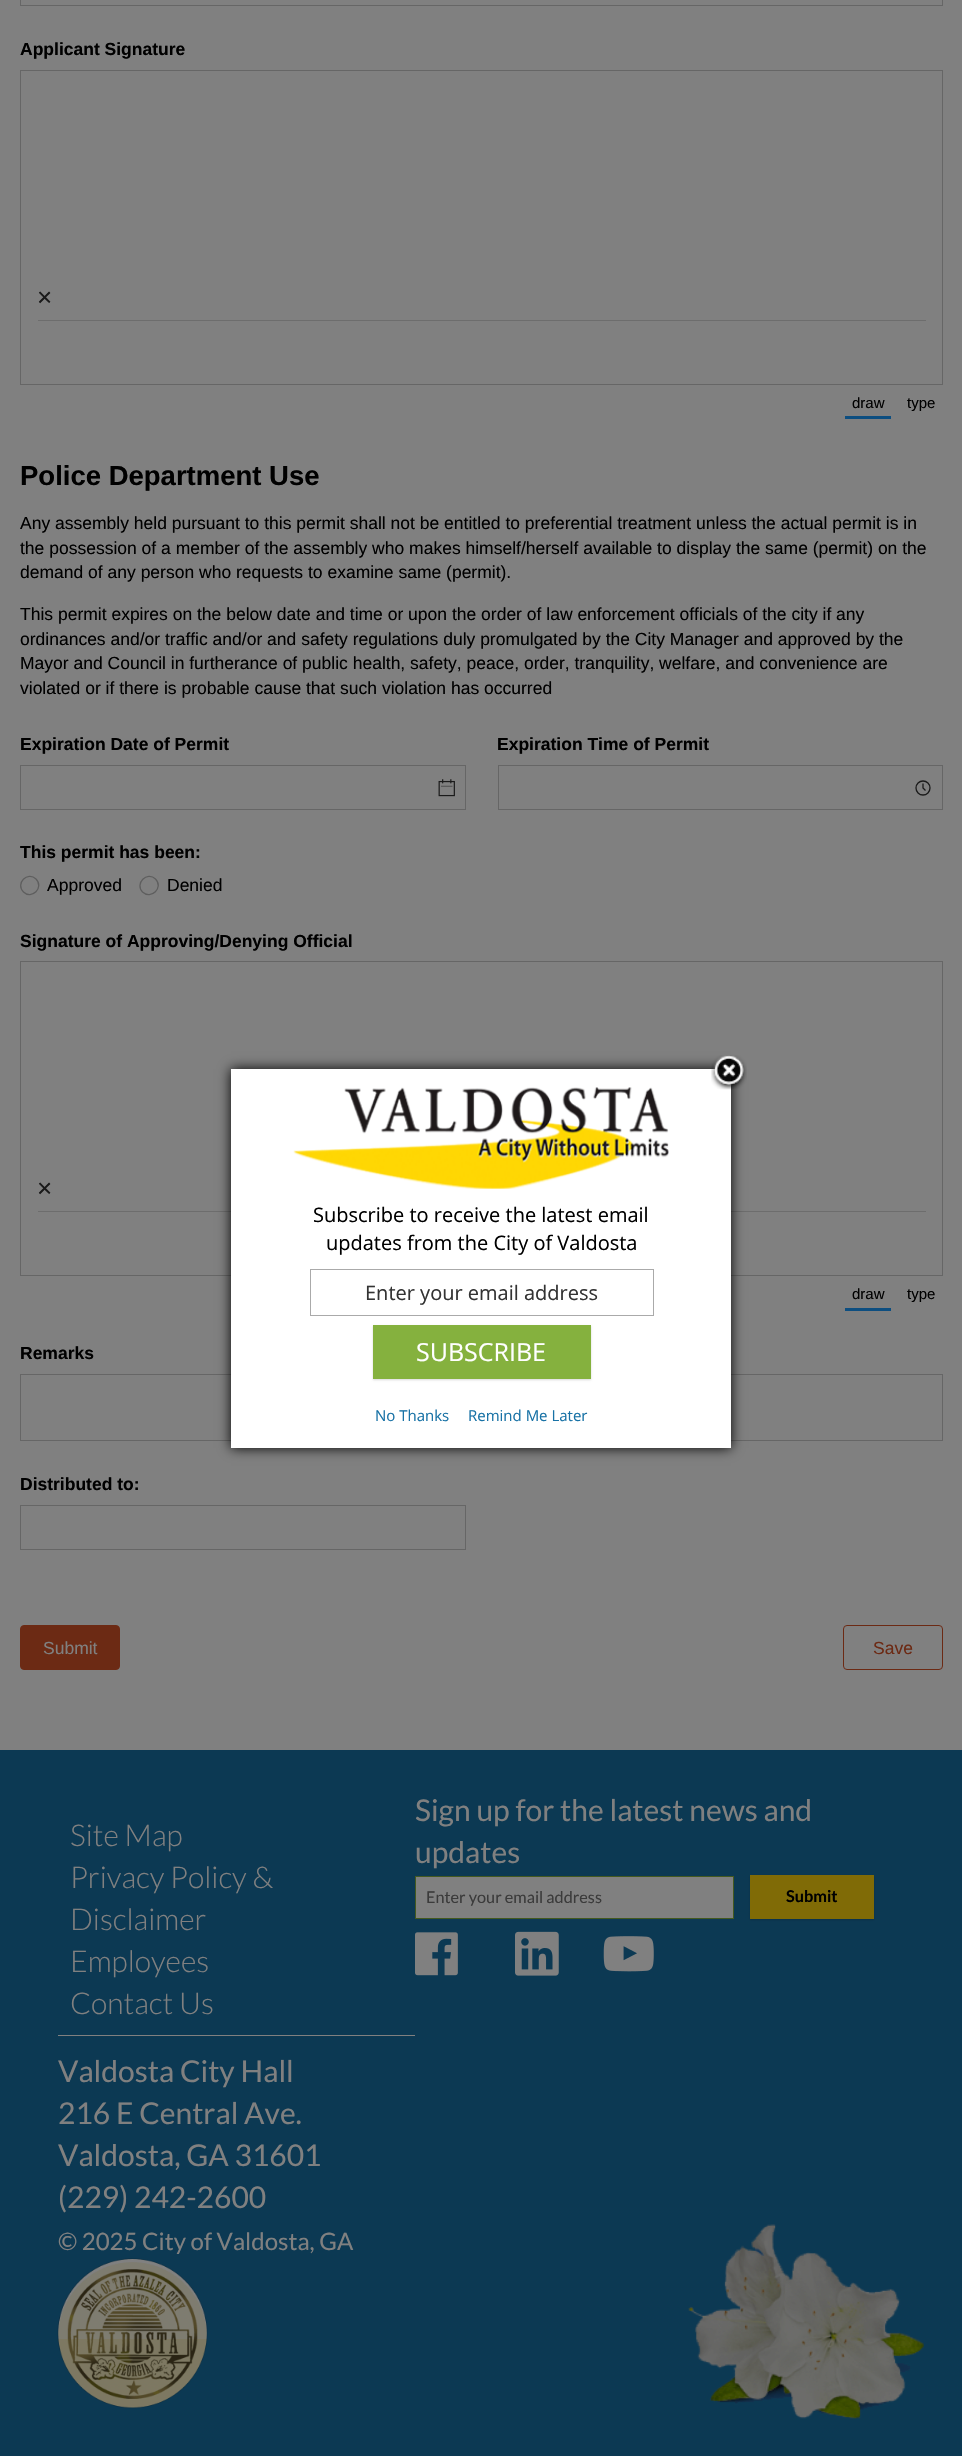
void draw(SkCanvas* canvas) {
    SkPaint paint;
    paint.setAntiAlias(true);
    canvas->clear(0xFF808080);
    paint.setStyle(SkPaint::kStroke_Style);
    paint.setStrokeWidth(1);
    paint.setColor(0xFF666666);
    canvas->drawRect(SkRect::MakeXYWH(20.5f, -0.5f, 922, 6), paint);
    SkFont font1(fontMgr->matchFamilyStyle("Liberation Sans", SkFontStyle::Bold()), 17.5f);
    font1.setSubpixel(true);
    paint.setStyle(SkPaint::kFill_Style);
    paint.setColor(0xFF000000);
    canvas->drawString("Applicant Signature", 20, 55, font1, paint);
    paint.setStyle(SkPaint::kStroke_Style);
    paint.setColor(0xFF666666);
    canvas->drawRect(SkRect::MakeXYWH(20.5f, 70.5f, 922, 314), paint);
    SkFont font2(fontMgr->matchFamilyStyle("Liberation Sans", SkFontStyle::Normal()), 26);
    font2.setSubpixel(true);
    paint.setStyle(SkPaint::kFill_Style);
    paint.setColor(0xFF1A1A1A);
    canvas->drawString("×", 37, 306, font2, paint);
    paint.setColor(0xFF6D6D6D);
    canvas->drawRect(SkRect::MakeXYWH(38, 320, 888, 1), paint);
    paint.setColor(0xFF0D4E80);
    canvas->drawRect(SkRect::MakeXYWH(845, 416, 46, 3), paint);
    SkFont font3(fontMgr->matchFamilyStyle("Liberation Sans", SkFontStyle::Normal()), 15);
    font3.setSubpixel(true);
    paint.setColor(0xFF000000);
    canvas->drawString("draw", 852, 408, font3, paint);
    canvas->drawString("type", 907, 408, font3, paint);
    SkFont font4(fontMgr->matchFamilyStyle("Liberation Sans", SkFontStyle::Bold()), 27.5f);
    font4.setSubpixel(true);
    canvas->drawString("Police Department Use", 20, 485, font4, paint);
    SkFont font5(fontMgr->matchFamilyStyle("Liberation Sans", SkFontStyle::Normal()), 17.5f);
    font5.setSubpixel(true);
    canvas->drawString("Any assembly held pursuant to this permit shall not be entitled to preferential treatment unless the actual permit is in", 20, 529, font5, paint);
    canvas->drawString("the possession of a member of the assembly who makes himself/herself available to display the same (permit) on the", 20, 554, font5, paint);
    canvas->drawString("demand of any person who requests to examine same (permit).", 20, 578, font5, paint);
    canvas->drawString("This permit expires on the below date and time or upon the order of law enforcement officials of the city if any", 20, 620, font5, paint);
    canvas->drawString("ordinances and/or traffic and/or and safety regulations duly promulgated by the City Manager and approved by the", 20, 645, font5, paint);
    canvas->drawString("Mayor and Council in furtherance of public health, safety, peace, order, tranquility, welfare, and convenience are", 20, 669, font5, paint);
    canvas->drawString("violated or if there is probable cause that such violation has occurred", 20, 694, font5, paint);
    canvas->drawString("Expiration Date of Permit", 20, 750, font1, paint);
    paint.setStyle(SkPaint::kStroke_Style);
    paint.setColor(0xFF666666);
    canvas->drawRect(SkRect::MakeXYWH(20.5f, 765.5f, 445, 44), paint);
    canvas->drawImageRect(SkImages::DeferredFromEncodedData(SkData::MakeFromFileName("img1.png")), SkRect::MakeXYWH(438, 779, 17, 18), SkSamplingOptions());
    paint.setStyle(SkPaint::kFill_Style);
    paint.setColor(0xFF000000);
    canvas->drawString("Expiration Time of Permit", 497, 750, font1, paint);
    paint.setStyle(SkPaint::kStroke_Style);
    paint.setColor(0xFF666666);
    canvas->drawRect(SkRect::MakeXYWH(498.5f, 765.5f, 444, 44), paint);
    paint.setStrokeWidth(1.3f);
    paint.setColor(0xFF1A1A1A);
    canvas->drawCircle(923, 788, 7, paint);
    canvas->drawPath(SkPathBuilder().moveTo(923, 783.5f).lineTo(923, 788).lineTo(925.5f, 790.5f).detach(), paint);
    paint.setStyle(SkPaint::kFill_Style);
    paint.setColor(0xFF000000);
    canvas->drawString("This permit has been:", 20, 858, font1, paint);
    paint.setStyle(SkPaint::kStroke_Style);
    paint.setColor(0xFF5E5E5E);
    canvas->drawPath(SkPathBuilder().moveTo(36, 879).cubicTo(44.5f, 887.5f, 31.5f, 900, 23.5f, 892).cubicTo(15, 883.5f, 27.5f, 871, 36, 879).close().detach(), paint);
    paint.setStyle(SkPaint::kFill_Style);
    paint.setColor(0xFF000000);
    canvas->drawString("Approved", 47, 891, font5, paint);
    paint.setStyle(SkPaint::kStroke_Style);
    paint.setColor(0xFF5E5E5E);
    canvas->drawPath(SkPathBuilder().moveTo(155.5f, 879).cubicTo(164, 887.5f, 151, 900, 142.5f, 892).cubicTo(134.5f, 883.5f, 147, 871, 155.5f, 879).close().detach(), paint);
    paint.setStyle(SkPaint::kFill_Style);
    paint.setColor(0xFF000000);
    canvas->drawString("Denied", 167, 891, font5, paint);
    canvas->drawString("Signature of Approving/Denying Official", 20, 947, font1, paint);
    paint.setStyle(SkPaint::kStroke_Style);
    paint.setStrokeWidth(1);
    paint.setColor(0xFF666666);
    canvas->drawRect(SkRect::MakeXYWH(20.5f, 961.5f, 922, 314), paint);
    paint.setStyle(SkPaint::kFill_Style);
    paint.setColor(0xFF1A1A1A);
    canvas->drawString("×", 37, 1197, font2, paint);
    paint.setColor(0xFF6D6D6D);
    canvas->drawRect(SkRect::MakeXYWH(38, 1211, 888, 1), paint);
    paint.setColor(0xFF0D4E80);
    canvas->drawRect(SkRect::MakeXYWH(845, 1308, 46, 3), paint);
    paint.setColor(0xFF000000);
    canvas->drawString("draw", 852, 1299, font3, paint);
    canvas->drawString("type", 907, 1299, font3, paint);
    canvas->drawString("Remarks", 20, 1359, font1, paint);
    paint.setStyle(SkPaint::kStroke_Style);
    paint.setColor(0xFF666666);
    canvas->drawRect(SkRect::MakeXYWH(20.5f, 1374.5f, 922, 66), paint);
    paint.setStyle(SkPaint::kFill_Style);
    paint.setColor(0xFF000000);
    canvas->drawString("Distributed to:", 20, 1490, font1, paint);
    paint.setStyle(SkPaint::kStroke_Style);
    paint.setColor(0xFF666666);
    canvas->drawRect(SkRect::MakeXYWH(20.5f, 1505.5f, 445, 44), paint);
    paint.setStyle(SkPaint::kFill_Style);
    paint.setColor(0xFF6C2A14);
    canvas->drawRoundRect(SkRect::MakeXYWH(20.5f, 1625.5f, 99, 44), 3.5f, 3.5f, paint);
    paint.setStyle(SkPaint::kStroke_Style);
    canvas->drawRoundRect(SkRect::MakeXYWH(20.5f, 1625.5f, 99, 44), 3.5f, 3.5f, paint);
    paint.setStyle(SkPaint::kFill_Style);
    paint.setColor(0xFF808080);
    canvas->drawString("Submit", 43, 1654, font5, paint);
    paint.setStyle(SkPaint::kStroke_Style);
    paint.setColor(0xFF6C2A14);
    canvas->drawRoundRect(SkRect::MakeXYWH(843.5f, 1625.5f, 99, 44), 3.5f, 3.5f, paint);
    paint.setStyle(SkPaint::kFill_Style);
    canvas->drawString("Save", 873, 1654, font5, paint);
    paint.setColor(0xFF0C3953);
    canvas->drawRect(SkRect::MakeXYWH(0, 1750, 962, 706), paint);
    canvas->drawImageRect(SkImages::DeferredFromEncodedData(SkData::MakeFromFileName("img2.png")), SkRect::MakeXYWH(688, 2224, 236, 195), SkSamplingOptions());
    paint.setColor(0xFF808080);
    canvas->drawRect(SkRect::MakeXYWH(58, 2035, 357, 1), paint);
    SkFont font6(fontMgr->matchFamilyStyle("Lato", SkFontStyle(300, SkFontStyle::kNormal_Width, SkFontStyle::kUpright_Slant)), 30);
    font6.setSubpixel(true);
    canvas->drawString("Site Map", 70, 1846, font6, paint);
    canvas->drawString("Privacy Policy &", 70, 1888, font6, paint);
    canvas->drawString("Disclaimer", 70, 1930, font6, paint);
    canvas->drawString("Employees", 70, 1972, font6, paint);
    canvas->drawString("Contact Us", 70, 2014, font6, paint);
    SkFont font7(fontMgr->matchFamilyStyle("Lato", SkFontStyle::Normal()), 30);
    font7.setSubpixel(true);
    canvas->drawString("Valdosta City Hall", 58, 2082, font7, paint);
    canvas->drawString("216 E Central Ave.", 58, 2124, font7, paint);
    canvas->drawString("Valdosta, GA 31601", 58, 2166, font7, paint);
    canvas->drawString("(229) 242-2600", 58, 2208, font7, paint);
    SkFont font8(fontMgr->matchFamilyStyle("Lato", SkFontStyle::Normal()), 24);
    font8.setSubpixel(true);
    canvas->drawString("© 2025 City of Valdosta, GA", 58, 2250, font8, paint);
    canvas->drawImageRect(SkImages::DeferredFromEncodedData(SkData::MakeFromFileName("img3.png")), SkRect::MakeXYWH(57, 2258, 151, 151), SkSamplingOptions());
    canvas->drawString("Sign up for the latest news and", 415, 1821, font7, paint);
    canvas->drawString("updates", 415, 1863, font7, paint);
    canvas->drawRect(SkRect::MakeXYWH(415.5f, 1876.5f, 318, 42), paint);
    paint.setStyle(SkPaint::kStroke_Style);
    paint.setColor(0xFF43591F);
    canvas->drawRect(SkRect::MakeXYWH(415.5f, 1876.5f, 318, 42), paint);
    SkFont font9(fontMgr->matchFamilyStyle("Lato", SkFontStyle::Normal()), 16.25f);
    font9.setSubpixel(true);
    paint.setStyle(SkPaint::kFill_Style);
    paint.setColor(0xFF3B3B3B);
    canvas->drawString("Enter your email address", 426, 1903, font9, paint);
    paint.setColor(0x26000000);
    paint.setMaskFilter(SkMaskFilter::MakeBlur(kNormal_SkBlurStyle, 1));
    canvas->drawRect(SkRect::MakeXYWH(750, 1876, 124, 44), paint);
    paint.setMaskFilter(nullptr);
    paint.setColor(0xFF806B06);
    canvas->drawRect(SkRect::MakeXYWH(750, 1875, 124, 44), paint);
    SkFont font10(fontMgr->matchFamilyStyle("Lato", SkFontStyle::Bold()), 16.25f);
    font10.setSubpixel(true);
    paint.setColor(0xFF000000);
    canvas->drawString("Submit", 786, 1902, font10, paint);
    canvas->drawImageRect(SkImages::DeferredFromEncodedData(SkData::MakeFromFileName("img4.png")), SkRect::MakeXYWH(415, 1932, 43, 44), SkSamplingOptions());
    canvas->drawImageRect(SkImages::DeferredFromEncodedData(SkData::MakeFromFileName("img5.png")), SkRect::MakeXYWH(515, 1931, 44, 45), SkSamplingOptions());
    canvas->drawImageRect(SkImages::DeferredFromEncodedData(SkData::MakeFromFileName("img6.png")), SkRect::MakeXYWH(603, 1936, 51, 36), SkSamplingOptions());
    paint.setMaskFilter(SkMaskFilter::MakeBlur(kNormal_SkBlurStyle, 6));
    canvas->drawRect(SkRect::MakeXYWH(231, 1069, 500, 379), paint);
    paint.setMaskFilter(nullptr);
    paint.setColor(0xFFFFFFFF);
    canvas->drawRect(SkRect::MakeXYWH(231, 1069, 500, 379), paint);
    canvas->drawImageRect(SkImages::DeferredFromEncodedData(SkData::MakeFromFileName("img7.png")), SkRect::MakeXYWH(711, 1055, 36, 35), SkSamplingOptions());
    canvas->drawImageRect(SkImages::DeferredFromEncodedData(SkData::MakeFromFileName("img8.png")), SkRect::MakeXYWH(293, 1087, 376, 102), SkSamplingOptions());
    SkFont font11(fontMgr->matchFamilyStyle("Open Sans", SkFontStyle::Normal()), 20);
    font11.setSubpixel(true);
    paint.setColor(0xFF000000);
    canvas->drawString("Subscribe to receive the latest email", 313, 1222, font11, paint);
    canvas->drawString("updates from the City of Valdosta", 326, 1250, font11, paint);
    paint.setStyle(SkPaint::kStroke_Style);
    paint.setColor(0xFFAAAAAA);
    canvas->drawRect(SkRect::MakeXYWH(310.5f, 1269.5f, 343, 46), paint);
    paint.setStyle(SkPaint::kFill_Style);
    paint.setColor(0xFF333333);
    canvas->drawString("Enter your email address", 365, 1300, font11, paint);
    paint.setColor(0x26000000);
    paint.setMaskFilter(SkMaskFilter::MakeBlur(kNormal_SkBlurStyle, 1));
    canvas->drawRect(SkRect::MakeXYWH(373, 1326, 218, 54), paint);
    paint.setMaskFilter(nullptr);
    paint.setColor(0xFF85B13E);
    canvas->drawRect(SkRect::MakeXYWH(373, 1325, 218, 54), paint);
    SkFont font12(fontMgr->matchFamilyStyle("Open Sans", SkFontStyle::Normal()), 25);
    font12.setSubpixel(true);
    paint.setColor(0xFFFFFFFF);
    canvas->drawString("SUBSCRIBE", 416, 1361, font12, paint);
    SkFont font13(fontMgr->matchFamilyStyle("Open Sans", SkFontStyle::Normal()), 15);
    font13.setSubpixel(true);
    paint.setColor(0xFF1872A6);
    canvas->drawString("No Thanks", 375, 1421, font13, paint);
    canvas->drawString("Remind Me Later", 468, 1421, font13, paint);
}
